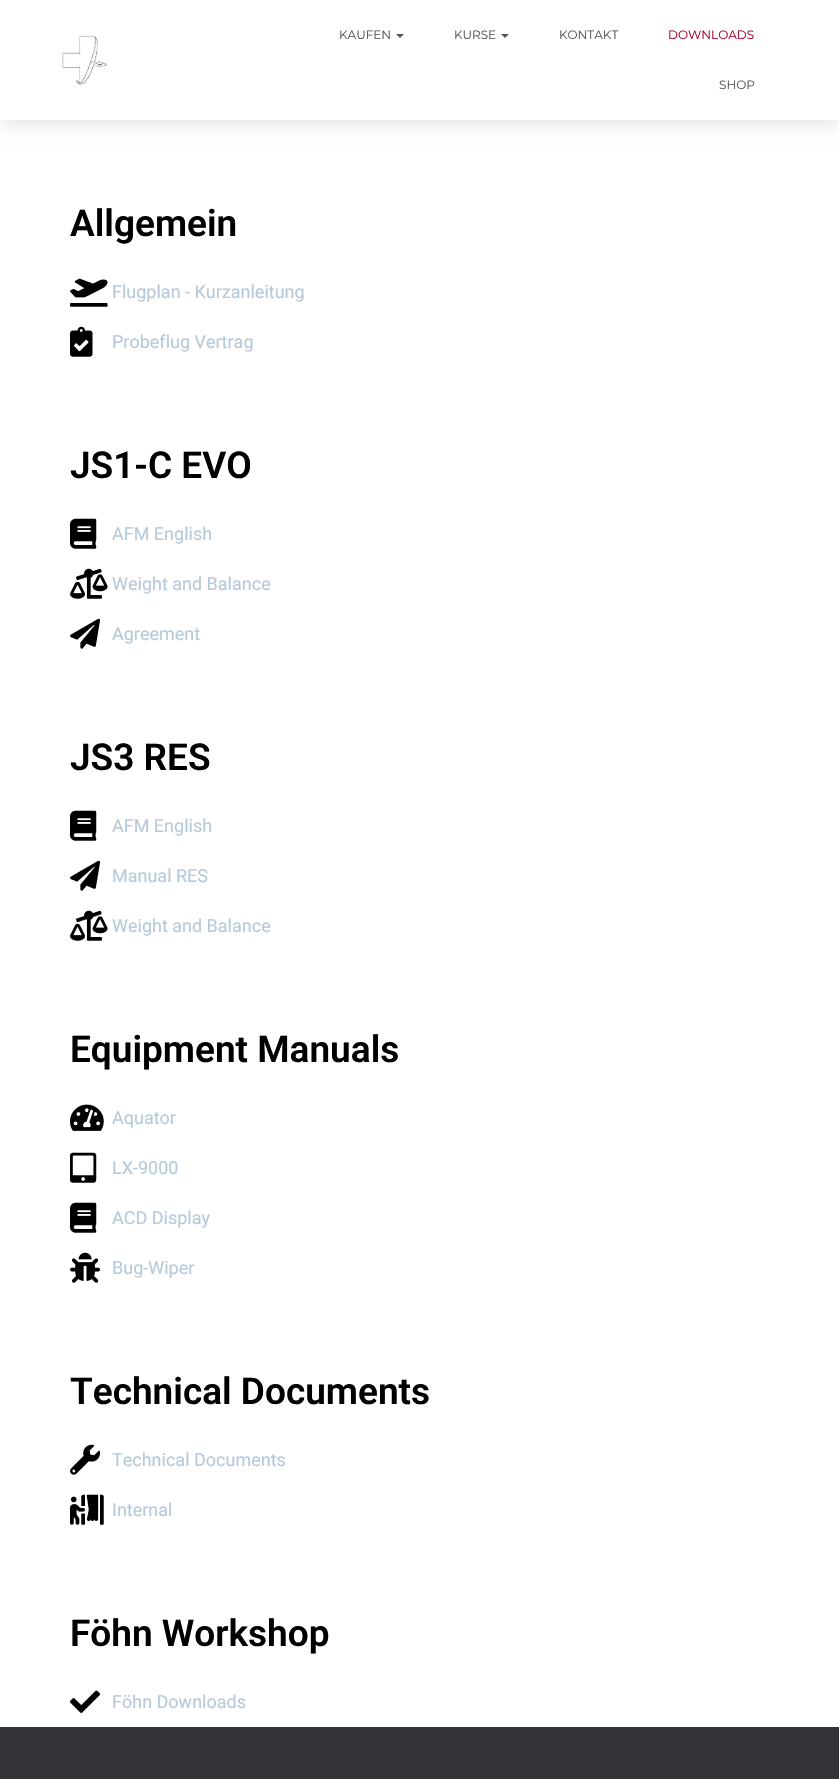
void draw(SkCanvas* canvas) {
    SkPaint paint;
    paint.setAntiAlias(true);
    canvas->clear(0xFFFFFFFF);
    paint.setColor(0x26000000);
    paint.setMaskFilter(SkMaskFilter::MakeBlur(kNormal_SkBlurStyle, 10));
    canvas->drawRect(SkRect::MakeXYWH(0, 0, 839, 120), paint);
    paint.setMaskFilter(nullptr);
    paint.setColor(0xFFFFFFFF);
    canvas->drawRect(SkRect::MakeXYWH(0, 0, 839, 120), paint);
    canvas->drawImageRect(SkImages::DeferredFromEncodedData(SkData::MakeFromFileName("img1.png")), SkRect::MakeXYWH(62, 35, 45, 50), SkSamplingOptions());
    SkFont font1(fontMgr->matchFamilyStyle("Montserrat", SkFontStyle::Normal()), 12);
    font1.setSubpixel(true);
    paint.setColor(0xFF555555);
    canvas->drawString("KAUFEN", 339, 39, font1, paint);
    canvas->drawPath(SkPathBuilder().moveTo(396, 34).lineTo(404, 34).lineTo(400, 38).close().detach(), paint);
    canvas->drawString("KURSE", 454, 39, font1, paint);
    canvas->drawPath(SkPathBuilder().moveTo(501, 34).lineTo(509, 34).lineTo(505, 38).close().detach(), paint);
    canvas->drawString("KONTAKT", 559, 39, font1, paint);
    paint.setColor(0xFFAA0025);
    canvas->drawString("DOWNLOADS", 668, 39, font1, paint);
    paint.setColor(0xFF555555);
    canvas->drawString("SHOP", 719, 89, font1, paint);
    SkFont font2(fontMgr->matchFamilyStyle("Roboto", SkFontStyle(600, SkFontStyle::kNormal_Width, SkFontStyle::kUpright_Slant)), 37);
    font2.setSubpixel(true);
    paint.setColor(0xFF000000);
    canvas->drawString("Allgemein", 70, 236, font2, paint);
    canvas->drawImageRect(SkImages::DeferredFromEncodedData(SkData::MakeFromFileName("img2.png")), SkRect::MakeXYWH(70, 278, 38, 29), SkSamplingOptions());
    SkFont font3(fontMgr->matchFamilyStyle("Roboto", SkFontStyle::Normal()), 18);
    font3.setSubpixel(true);
    paint.setColor(0xFFB6C9DB);
    canvas->drawString("Flugplan - Kurzanleitung", 112, 298, font3, paint);
    canvas->drawImageRect(SkImages::DeferredFromEncodedData(SkData::MakeFromFileName("img3.png")), SkRect::MakeXYWH(70, 326, 23, 31), SkSamplingOptions());
    canvas->drawString("Probeflug Vertrag", 112, 348, font3, paint);
    paint.setColor(0xFF000000);
    canvas->drawString("JS1-C EVO", 70, 478, font2, paint);
    canvas->drawImageRect(SkImages::DeferredFromEncodedData(SkData::MakeFromFileName("img4.png")), SkRect::MakeXYWH(70, 518, 27, 31), SkSamplingOptions());
    paint.setColor(0xFFB6C9DB);
    canvas->drawString("AFM English", 112, 540, font3, paint);
    canvas->drawImageRect(SkImages::DeferredFromEncodedData(SkData::MakeFromFileName("img5.png")), SkRect::MakeXYWH(70, 568, 38, 31), SkSamplingOptions());
    canvas->drawString("Weight and Balance", 112, 590, font3, paint);
    canvas->drawImageRect(SkImages::DeferredFromEncodedData(SkData::MakeFromFileName("img6.png")), SkRect::MakeXYWH(70, 618, 31, 31), SkSamplingOptions());
    canvas->drawString("Agreement", 112, 640, font3, paint);
    paint.setColor(0xFF000000);
    canvas->drawString("JS3 RES", 70, 770, font2, paint);
    canvas->drawImageRect(SkImages::DeferredFromEncodedData(SkData::MakeFromFileName("img4.png")), SkRect::MakeXYWH(70, 810, 27, 31), SkSamplingOptions());
    paint.setColor(0xFFB6C9DB);
    canvas->drawString("AFM English", 112, 832, font3, paint);
    canvas->drawImageRect(SkImages::DeferredFromEncodedData(SkData::MakeFromFileName("img6.png")), SkRect::MakeXYWH(70, 860, 31, 31), SkSamplingOptions());
    canvas->drawString("Manual RES", 112, 882, font3, paint);
    canvas->drawImageRect(SkImages::DeferredFromEncodedData(SkData::MakeFromFileName("img5.png")), SkRect::MakeXYWH(70, 910, 38, 31), SkSamplingOptions());
    canvas->drawString("Weight and Balance", 112, 932, font3, paint);
    paint.setColor(0xFF000000);
    canvas->drawString("Equipment Manuals", 70, 1062, font2, paint);
    canvas->drawImageRect(SkImages::DeferredFromEncodedData(SkData::MakeFromFileName("img7.png")), SkRect::MakeXYWH(70, 1104, 34, 27), SkSamplingOptions());
    paint.setColor(0xFFB6C9DB);
    canvas->drawString("Aquator", 112, 1124, font3, paint);
    canvas->drawImageRect(SkImages::DeferredFromEncodedData(SkData::MakeFromFileName("img8.png")), SkRect::MakeXYWH(70, 1152, 27, 31), SkSamplingOptions());
    canvas->drawString("LX-9000", 112, 1174, font3, paint);
    canvas->drawImageRect(SkImages::DeferredFromEncodedData(SkData::MakeFromFileName("img4.png")), SkRect::MakeXYWH(70, 1202, 27, 31), SkSamplingOptions());
    canvas->drawString("ACD Display", 112, 1224, font3, paint);
    canvas->drawImageRect(SkImages::DeferredFromEncodedData(SkData::MakeFromFileName("img9.png")), SkRect::MakeXYWH(70, 1252, 30, 31), SkSamplingOptions());
    canvas->drawString("Bug-Wiper", 112, 1274, font3, paint);
    paint.setColor(0xFF000000);
    canvas->drawString("Technical Documents", 70, 1404, font2, paint);
    canvas->drawImageRect(SkImages::DeferredFromEncodedData(SkData::MakeFromFileName("img10.png")), SkRect::MakeXYWH(70, 1444, 31, 31), SkSamplingOptions());
    paint.setColor(0xFFB6C9DB);
    canvas->drawString("Technical Documents", 112, 1466, font3, paint);
    canvas->drawImageRect(SkImages::DeferredFromEncodedData(SkData::MakeFromFileName("img11.png")), SkRect::MakeXYWH(70, 1494, 34, 31), SkSamplingOptions());
    canvas->drawString("Internal", 112, 1516, font3, paint);
    paint.setColor(0xFF000000);
    canvas->drawString("Föhn Workshop", 70, 1646, font2, paint);
    canvas->drawImageRect(SkImages::DeferredFromEncodedData(SkData::MakeFromFileName("img12.png")), SkRect::MakeXYWH(70, 1690, 30, 23), SkSamplingOptions());
    paint.setColor(0xFFB6C9DB);
    canvas->drawString("Föhn Downloads", 112, 1708, font3, paint);
    paint.setColor(0xFF323437);
    canvas->drawRect(SkRect::MakeXYWH(0, 1727, 839, 52), paint);
}
